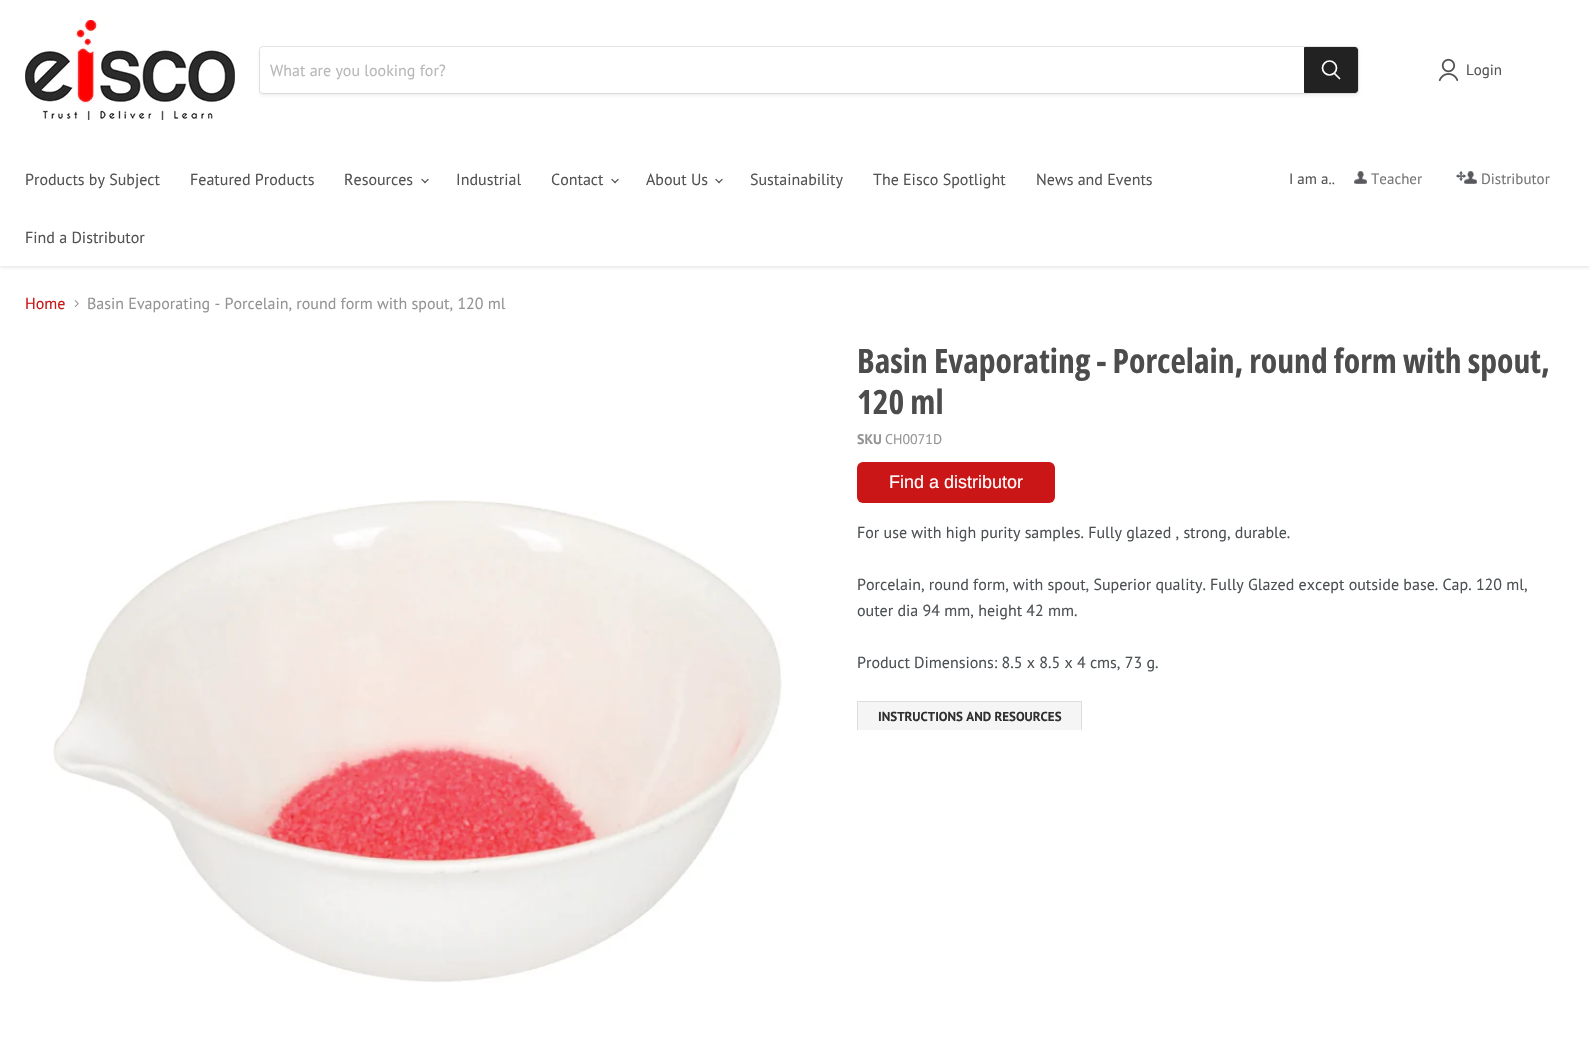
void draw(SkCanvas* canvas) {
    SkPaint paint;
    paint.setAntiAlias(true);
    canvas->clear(0xFFFFFFFF);
    canvas->save();
    canvas->clipRect(SkRect::MakeXYWH(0, 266, 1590, 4));
    paint.setColor(0x40808080);
    paint.setMaskFilter(SkMaskFilter::MakeBlur(kNormal_SkBlurStyle, 2));
    canvas->drawRect(SkRect::MakeXYWH(0, 1, 1590, 266), paint);
    paint.setMaskFilter(nullptr);
    canvas->restore();
    canvas->drawImageRect(SkImages::DeferredFromEncodedData(SkData::MakeFromFileName("img1.png")), SkRect::MakeXYWH(25, 20, 210, 100), SkSamplingOptions());
    paint.setColor(0x1C808080);
    paint.setMaskFilter(SkMaskFilter::MakeBlur(kNormal_SkBlurStyle, 1.5f));
    canvas->drawRoundRect(SkRect::MakeXYWH(259, 48, 1100, 48), 4, 4, paint);
    paint.setMaskFilter(nullptr);
    paint.setStyle(SkPaint::kStroke_Style);
    paint.setStrokeWidth(1);
    paint.setColor(0x33808080);
    canvas->drawRoundRect(SkRect::MakeXYWH(259.5f, 46.5f, 1099, 47), 3.5f, 3.5f, paint);
    paint.setStyle(SkPaint::kFill_Style);
    paint.setColor(0xFFFFFFFF);
    canvas->drawPath(SkPathBuilder().moveTo(263, 47).lineTo(1304, 47).lineTo(1304, 93).lineTo(263, 93).cubicTo(261.5f, 93, 260, 91.5f, 260, 90).lineTo(260, 50).cubicTo(260, 48.5f, 261.5f, 47, 263, 47).close().detach(), paint);
    SkFont font1(fontMgr->matchFamilyStyle("PT Sans", SkFontStyle::Normal()), 16);
    font1.setSubpixel(true);
    paint.setColor(0xFFB8B8B8);
    canvas->drawString("What are you looking for?", 270, 76, font1, paint);
    paint.setColor(0xFF222222);
    canvas->drawPath(SkPathBuilder().moveTo(1304.5f, 47.5f).lineTo(1355, 47.5f).cubicTo(1356.5f, 47.5f, 1357.5f, 48.5f, 1357.5f, 50).lineTo(1357.5f, 90).cubicTo(1357.5f, 91.5f, 1356.5f, 92.5f, 1355, 92.5f).lineTo(1304.5f, 92.5f).close().detach(), paint);
    paint.setStyle(SkPaint::kStroke_Style);
    canvas->drawPath(SkPathBuilder().moveTo(1304.5f, 47.5f).lineTo(1355, 47.5f).cubicTo(1356.5f, 47.5f, 1357.5f, 48.5f, 1357.5f, 50).lineTo(1357.5f, 90).cubicTo(1357.5f, 91.5f, 1356.5f, 92.5f, 1355, 92.5f).lineTo(1304.5f, 92.5f).close().detach(), paint);
    paint.setStrokeWidth(1.7f);
    paint.setStrokeCap(SkPaint::kRound_Cap);
    paint.setColor(0xFFFFFFFF);
    canvas->drawPath(SkPathBuilder().moveTo(1339.5f, 78.5f).lineTo(1334.5f, 73.5f).detach(), paint);
    paint.setStrokeCap(SkPaint::kButt_Cap);
    canvas->drawCircle(1329.5f, 68, 7, paint);
    canvas->drawImageRect(SkImages::DeferredFromEncodedData(SkData::MakeFromFileName("img2.png")), SkRect::MakeXYWH(1438, 58, 20, 24), SkSamplingOptions());
    SkFont font2(fontMgr->matchFamilyStyle("PT Sans", SkFontStyle::Normal()), 15);
    font2.setSubpixel(true);
    paint.setStyle(SkPaint::kFill_Style);
    paint.setColor(0xFF535353);
    canvas->drawString("Login", 1466, 75, font2, paint);
    canvas->drawString("Products by Subject", 25, 185, font1, paint);
    canvas->drawString("Featured Products", 190, 185, font1, paint);
    canvas->drawString("Resources", 344, 185, font1, paint);
    canvas->drawImageRect(SkImages::DeferredFromEncodedData(SkData::MakeFromFileName("img3.png")), SkRect::MakeXYWH(421, 178, 8, 6), SkSamplingOptions());
    canvas->drawString("Industrial", 456, 185, font1, paint);
    canvas->drawString("Contact", 551, 185, font1, paint);
    canvas->drawImageRect(SkImages::DeferredFromEncodedData(SkData::MakeFromFileName("img3.png")), SkRect::MakeXYWH(611, 178, 8, 6), SkSamplingOptions());
    canvas->drawString("About Us", 646, 185, font1, paint);
    canvas->drawImageRect(SkImages::DeferredFromEncodedData(SkData::MakeFromFileName("img3.png")), SkRect::MakeXYWH(715, 178, 8, 6), SkSamplingOptions());
    canvas->drawString("Sustainability", 750, 185, font1, paint);
    canvas->drawString("The Eisco Spotlight", 873, 185, font1, paint);
    canvas->drawString("News and Events", 1036, 185, font1, paint);
    canvas->drawString("Find a Distributor", 25, 243, font1, paint);
    canvas->drawString("I am a..", 1289, 184, font2, paint);
    canvas->drawImageRect(SkImages::DeferredFromEncodedData(SkData::MakeFromFileName("img4.png")), SkRect::MakeXYWH(1354, 171, 13, 13), SkSamplingOptions());
    paint.setColor(0xFF757575);
    canvas->drawString("Teacher", 1371, 184, font2, paint);
    canvas->drawImageRect(SkImages::DeferredFromEncodedData(SkData::MakeFromFileName("img5.png")), SkRect::MakeXYWH(1456, 171, 21, 13), SkSamplingOptions());
    canvas->drawString("Distributor", 1481, 184, font2, paint);
    paint.setColor(0xFFCA1616);
    canvas->drawString("Home", 25, 309, font1, paint);
    canvas->drawImageRect(SkImages::DeferredFromEncodedData(SkData::MakeFromFileName("img6.png")), SkRect::MakeXYWH(74, 300, 5, 7), SkSamplingOptions());
    paint.setColor(0xFF949494);
    canvas->drawString("Basin Evaporating - Porcelain, round form with spout, 120 ml", 87, 309, font1, paint);
    canvas->drawImageRect(SkImages::DeferredFromEncodedData(SkData::MakeFromFileName("img7.png")), SkRect::MakeXYWH(53, 500, 729, 483), SkSamplingOptions());
    SkFont font3(fontMgr->matchFamilyStyle("Open Sans Condensed", SkFontStyle::Bold()), 33.6f);
    font3.setSubpixel(true);
    paint.setColor(0xFF4C4C4C);
    canvas->drawString("Basin Evaporating - Porcelain, round form with spout,", 857, 373, font3, paint);
    canvas->drawString("120 ml", 857, 414, font3, paint);
    SkFont font4(fontMgr->matchFamilyStyle("PT Sans", SkFontStyle::Bold()), 14);
    font4.setSubpixel(true);
    paint.setColor(0xFF949494);
    canvas->drawString("SKU", 857, 444, font4, paint);
    SkFont font5(fontMgr->matchFamilyStyle("PT Sans", SkFontStyle::Normal()), 14);
    font5.setSubpixel(true);
    canvas->drawString("CH0071D", 885, 444, font5, paint);
    paint.setColor(0xFFCA1616);
    canvas->drawRoundRect(SkRect::MakeXYWH(857, 462, 198, 41), 6, 6, paint);
    SkFont font6(fontMgr->matchFamilyStyle("Liberation Sans", SkFontStyle::Normal()), 18);
    font6.setSubpixel(true);
    paint.setColor(0xFFFFFFFF);
    canvas->drawString("Find a distributor", 889, 488, font6, paint);
    paint.setColor(0xFF4C5154);
    canvas->drawString("For use with high purity samples. Fully glazed , strong, durable.", 857, 538, font1, paint);
    canvas->drawString("Porcelain, round form, with spout, Superior quality. Fully Glazed except outside base. Cap. 120 ml,", 857, 590, font1, paint);
    canvas->drawString("outer dia 94 mm, height 42 mm.", 857, 616, font1, paint);
    canvas->drawString("Product Dimensions: 8.5 x 8.5 x 4 cms, 73 g.", 857, 668, font1, paint);
    paint.setColor(0xFFF5F5F5);
    canvas->drawRect(SkRect::MakeXYWH(858, 702, 223, 28), paint);
    paint.setColor(0xFFDDDDDD);
    canvas->drawRect(SkRect::MakeXYWH(857, 701, 225, 1), paint);
    canvas->drawRect(SkRect::MakeXYWH(1081, 701, 1, 29), paint);
    canvas->drawRect(SkRect::MakeXYWH(857, 701, 1, 29), paint);
    SkFont font7(fontMgr->matchFamilyStyle("PT Sans", SkFontStyle::Bold()), 13);
    font7.setSubpixel(true);
    paint.setColor(0xFF303030);
    canvas->drawString("INSTRUCTIONS AND RESOURCES", 878, 721, font7, paint);
}
